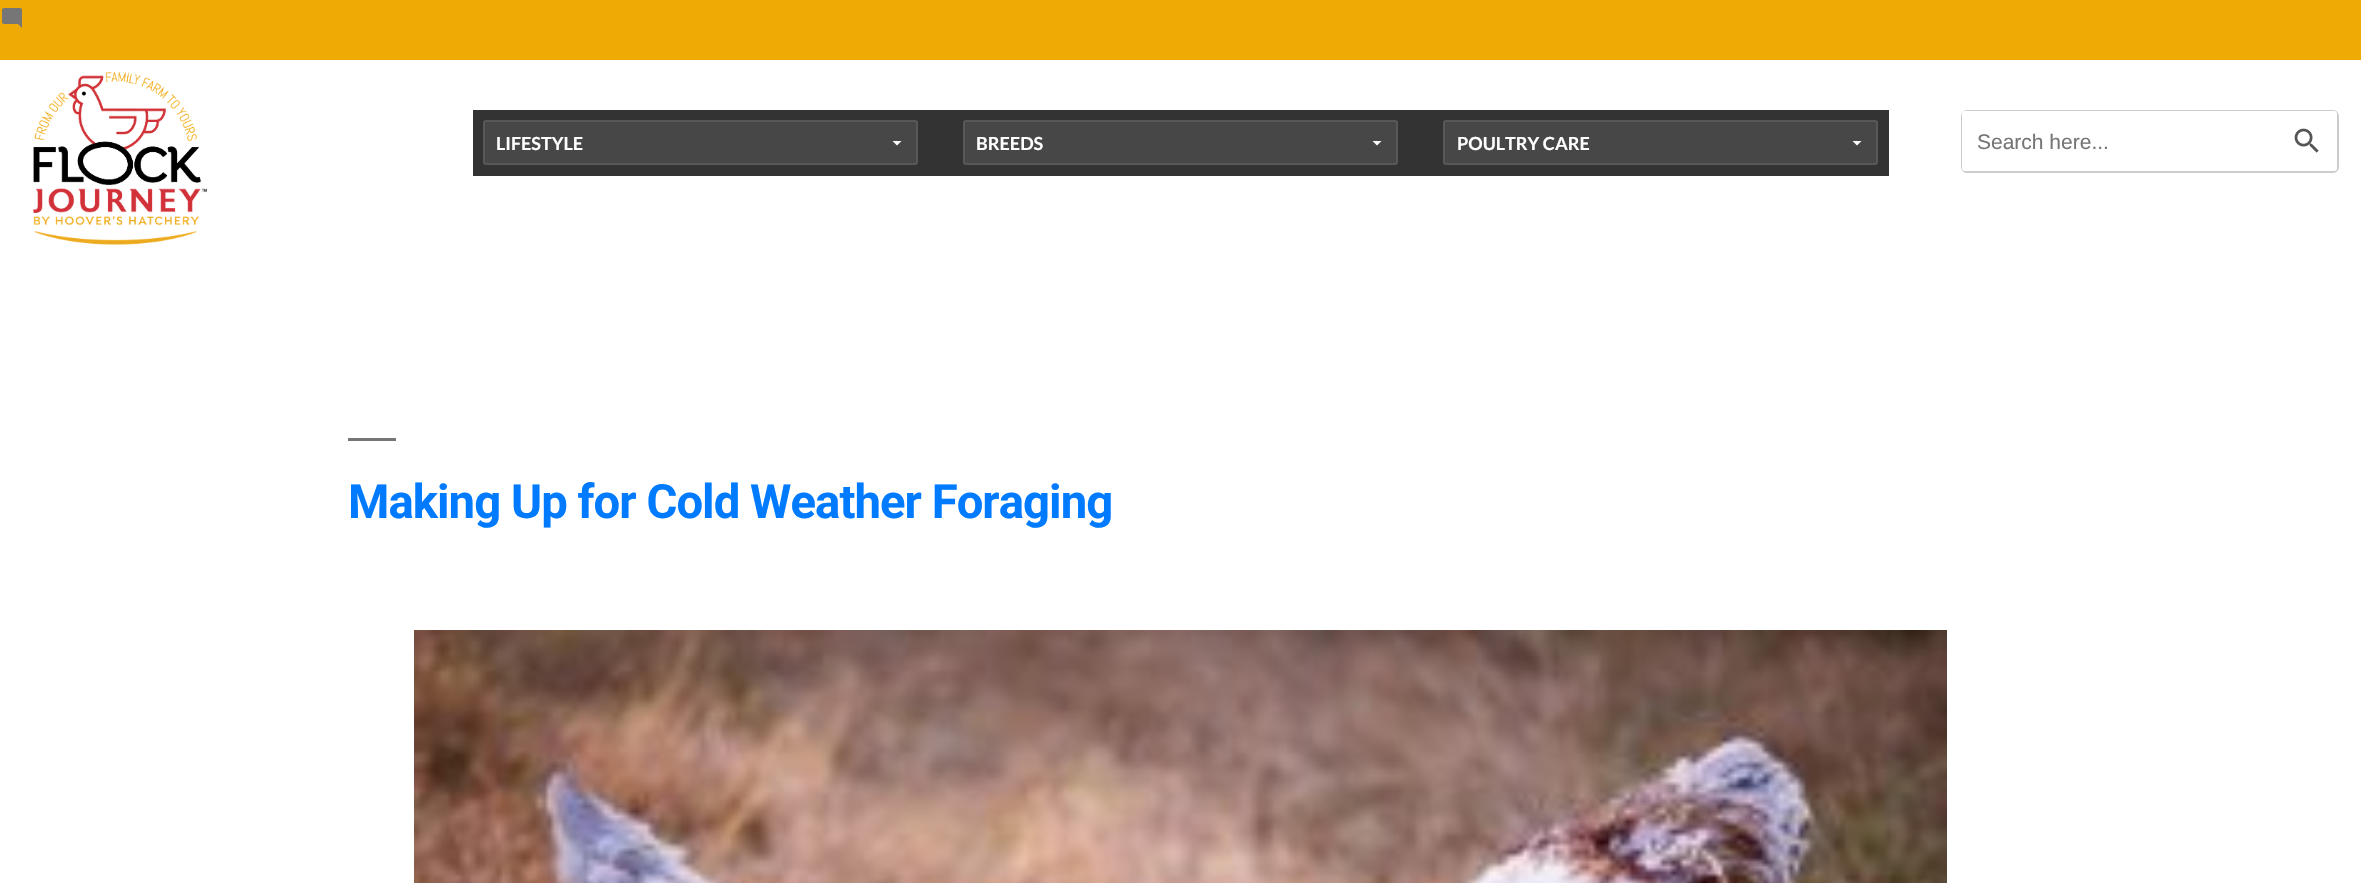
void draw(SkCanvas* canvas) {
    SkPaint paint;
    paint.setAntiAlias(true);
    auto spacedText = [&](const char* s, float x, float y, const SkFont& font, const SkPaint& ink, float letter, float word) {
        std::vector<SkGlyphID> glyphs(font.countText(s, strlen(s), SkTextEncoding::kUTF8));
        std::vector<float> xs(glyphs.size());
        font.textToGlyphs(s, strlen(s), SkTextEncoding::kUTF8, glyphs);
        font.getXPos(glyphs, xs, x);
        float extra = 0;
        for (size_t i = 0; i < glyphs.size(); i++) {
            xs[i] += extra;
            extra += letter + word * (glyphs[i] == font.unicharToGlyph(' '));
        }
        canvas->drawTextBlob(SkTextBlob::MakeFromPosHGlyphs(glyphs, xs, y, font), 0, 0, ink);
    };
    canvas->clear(0xFFFFFFFF);
    paint.setColor(0xFFEFAA05);
    canvas->drawRect(SkRect::MakeXYWH(0, 0, 2361, 60), paint);
    paint.setColor(0xFF333333);
    canvas->drawRect(SkRect::MakeXYWH(473, 110, 1416, 66), paint);
    paint.setColor(0xFF474747);
    canvas->drawRoundRect(SkRect::MakeXYWH(484, 121, 433, 43), 2, 2, paint);
    paint.setStyle(SkPaint::kStroke_Style);
    paint.setStrokeWidth(2);
    paint.setColor(0xFF585858);
    canvas->drawRoundRect(SkRect::MakeXYWH(484, 121, 433, 43), 2, 2, paint);
    SkFont font1(fontMgr->matchFamilyStyle("Lato", SkFontStyle::Bold()), 18);
    font1.setSubpixel(true);
    paint.setStyle(SkPaint::kFill_Style);
    paint.setColor(0xFFFFFFFF);
    canvas->drawString("LIFESTYLE", 496, 150, font1, paint);
    canvas->drawPath(SkPathBuilder().moveTo(892.5f, 141).lineTo(901.5f, 141).lineTo(897, 145.5f).close().detach(), paint);
    paint.setColor(0xFF474747);
    canvas->drawRoundRect(SkRect::MakeXYWH(964, 121, 433, 43), 2, 2, paint);
    paint.setStyle(SkPaint::kStroke_Style);
    paint.setColor(0xFF585858);
    canvas->drawRoundRect(SkRect::MakeXYWH(964, 121, 433, 43), 2, 2, paint);
    paint.setStyle(SkPaint::kFill_Style);
    paint.setColor(0xFFFFFFFF);
    canvas->drawString("BREEDS", 976, 150, font1, paint);
    canvas->drawPath(SkPathBuilder().moveTo(1372.5f, 141).lineTo(1381.5f, 141).lineTo(1377, 145.5f).close().detach(), paint);
    paint.setColor(0xFF474747);
    canvas->drawRoundRect(SkRect::MakeXYWH(1444, 121, 433, 43), 2, 2, paint);
    paint.setStyle(SkPaint::kStroke_Style);
    paint.setColor(0xFF585858);
    canvas->drawRoundRect(SkRect::MakeXYWH(1444, 121, 433, 43), 2, 2, paint);
    paint.setStyle(SkPaint::kFill_Style);
    paint.setColor(0xFFFFFFFF);
    canvas->drawString("POULTRY CARE", 1457, 150, font1, paint);
    canvas->drawPath(SkPathBuilder().moveTo(1852.5f, 141).lineTo(1861.5f, 141).lineTo(1857, 145.5f).close().detach(), paint);
    canvas->drawImageRect(SkImages::DeferredFromEncodedData(SkData::MakeFromFileName("img1.png")), SkRect::MakeXYWH(33, 72, 174, 173), SkSamplingOptions());
    paint.setStyle(SkPaint::kStroke_Style);
    paint.setColor(0xFFCCCCCC);
    canvas->drawRoundRect(SkRect::MakeXYWH(1962, 111, 376, 61), 5, 5, paint);
    paint.setStyle(SkPaint::kFill_Style);
    paint.setColor(0xFFFFFFFF);
    canvas->drawRoundRect(SkRect::MakeXYWH(1962, 111, 375, 60), 3, 3, paint);
    SkFont font2(fontMgr->matchFamilyStyle("Liberation Sans", SkFontStyle::Normal()), 21);
    font2.setSubpixel(true);
    paint.setColor(0xFF757575);
    canvas->drawString("Search here...", 1977, 149, font2, paint);
    canvas->drawImageRect(SkImages::DeferredFromEncodedData(SkData::MakeFromFileName("img2.png")), SkRect::MakeXYWH(2294, 128, 25, 25), SkSamplingOptions());
    canvas->drawImageRect(SkImages::DeferredFromEncodedData(SkData::MakeFromFileName("img3.png")), SkRect::MakeXYWH(2, 8, 20, 20), SkSamplingOptions());
    paint.setColor(0xFF767676);
    canvas->drawRect(SkRect::MakeXYWH(348, 438, 48, 3), paint);
    SkFont font3(fontMgr->matchFamilyStyle("Roboto", SkFontStyle::Bold()), 47.25f);
    font3.setSubpixel(true);
    paint.setColor(0xFF007BFF);
    spacedText("Making Up for Cold Weather Foraging", 348, 518, font3, paint, -0.95f, 0);
    canvas->drawImageRect(SkImages::DeferredFromEncodedData(SkData::MakeFromFileName("img4.png")), SkRect::MakeXYWH(414, 630, 1533, 253), SkSamplingOptions());
}
